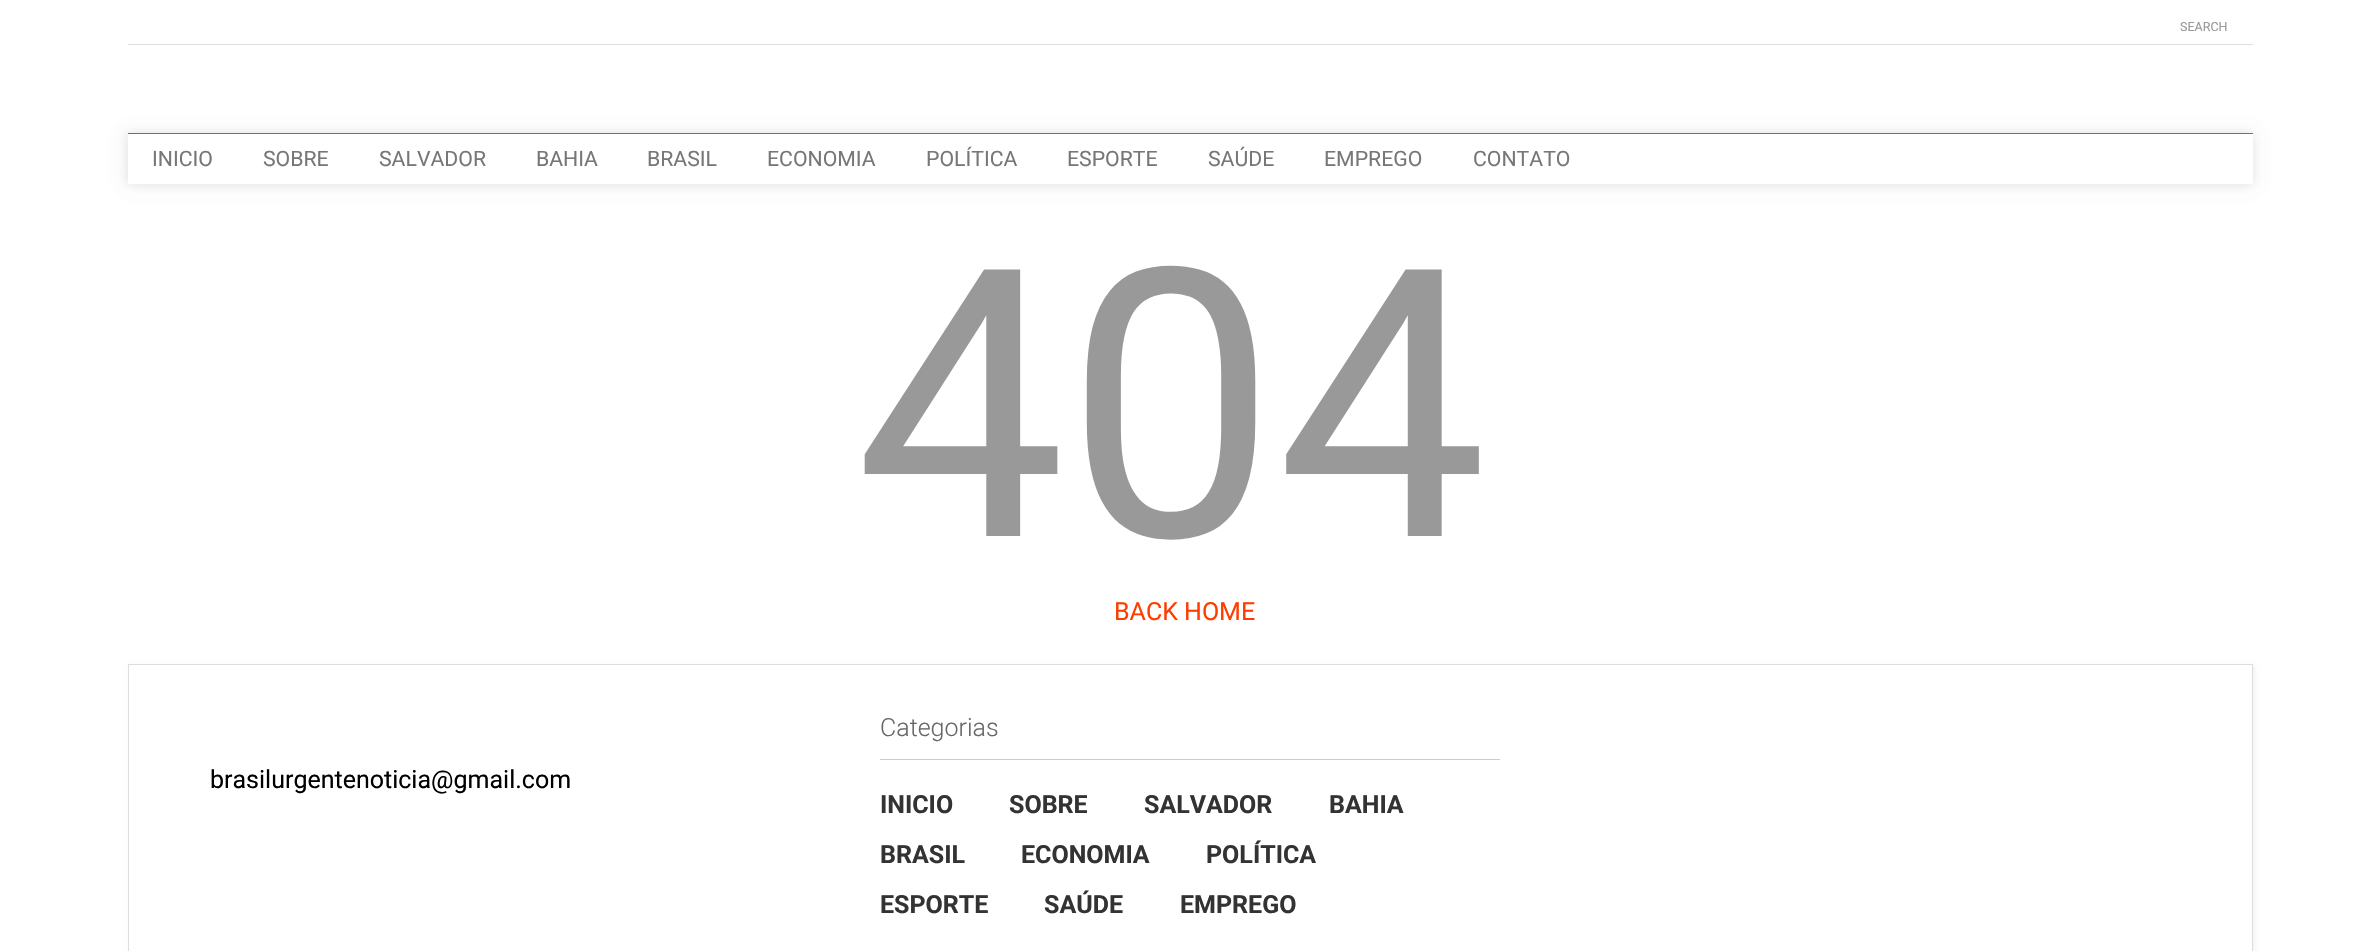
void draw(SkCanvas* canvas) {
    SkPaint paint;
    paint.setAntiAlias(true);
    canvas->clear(0xFFFFFFFF);
    paint.setColor(0xFFDDDDDD);
    canvas->drawRect(SkRect::MakeXYWH(128, 44, 2125, 1), paint);
    SkFont font1(fontMgr->matchFamilyStyle("Roboto", SkFontStyle::Normal()), 12.5f);
    font1.setSubpixel(true);
    paint.setColor(0xFF999999);
    canvas->drawString("SEARCH", 2180, 31, font1, paint);
    paint.setColor(0x14000000);
    paint.setMaskFilter(SkMaskFilter::MakeBlur(kNormal_SkBlurStyle, 6));
    canvas->drawRect(SkRect::MakeXYWH(126, 133, 2125, 51), paint);
    paint.setMaskFilter(nullptr);
    paint.setColor(0x0D000000);
    paint.setMaskFilter(SkMaskFilter::MakeBlur(kNormal_SkBlurStyle, 6));
    canvas->drawRect(SkRect::MakeXYWH(129, 134, 2125, 51), paint);
    paint.setMaskFilter(nullptr);
    paint.setColor(0xFFFFFFFF);
    canvas->drawRect(SkRect::MakeXYWH(128, 134, 2125, 50), paint);
    paint.setColor(0xFFFF3D00);
    canvas->drawRect(SkRect::MakeXYWH(128, 133, 2125, 1), paint);
    SkFont font2(fontMgr->matchFamilyStyle("Roboto", SkFontStyle::Normal()), 21.25f);
    font2.setSubpixel(true);
    paint.setColor(0xFF777777);
    canvas->drawString("INICIO", 152, 166, font2, paint);
    canvas->drawString("SOBRE", 263, 166, font2, paint);
    canvas->drawString("SALVADOR", 379, 166, font2, paint);
    canvas->drawString("BAHIA", 536, 166, font2, paint);
    canvas->drawString("BRASIL", 647, 166, font2, paint);
    canvas->drawString("ECONOMIA", 767, 166, font2, paint);
    canvas->drawString("POLÍTICA", 926, 166, font2, paint);
    canvas->drawString("ESPORTE", 1067, 166, font2, paint);
    canvas->drawString("SAÚDE", 1208, 166, font2, paint);
    canvas->drawString("EMPREGO", 1324, 166, font2, paint);
    canvas->drawString("CONTATO", 1473, 166, font2, paint);
    SkFont font3(fontMgr->matchFamilyStyle("Roboto", SkFontStyle::Normal()), 375);
    font3.setSubpixel(true);
    paint.setColor(0xFF999999);
    canvas->drawString("404", 855, 536, font3, paint);
    SkFont font4(fontMgr->matchFamilyStyle("Roboto", SkFontStyle::Normal()), 25);
    font4.setSubpixel(true);
    paint.setColor(0xFFFF3D00);
    canvas->drawString("BACK HOME", 1114, 620, font4, paint);
    paint.setColor(0x0D000000);
    paint.setMaskFilter(SkMaskFilter::MakeBlur(kNormal_SkBlurStyle, 2));
    canvas->drawRect(SkRect::MakeXYWH(130, 666, 2125, 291), paint);
    paint.setMaskFilter(nullptr);
    paint.setColor(0xFFFFFFFF);
    canvas->drawRect(SkRect::MakeXYWH(128.5f, 664.5f, 2124, 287), paint);
    paint.setStyle(SkPaint::kStroke_Style);
    paint.setStrokeWidth(1);
    paint.setColor(0xFFDDDDDD);
    canvas->drawRect(SkRect::MakeXYWH(128.5f, 664.5f, 2124, 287), paint);
    paint.setStyle(SkPaint::kFill_Style);
    paint.setColor(0xFF000000);
    canvas->drawString("brasilurgentenoticia@gmail.com", 210, 788, font4, paint);
    paint.setColor(0xFFCCCCCC);
    canvas->drawRect(SkRect::MakeXYWH(880, 759, 620, 1), paint);
    SkFont font5(fontMgr->matchFamilyStyle("Roboto", SkFontStyle(300, SkFontStyle::kNormal_Width, SkFontStyle::kUpright_Slant)), 25);
    font5.setSubpixel(true);
    paint.setColor(0xFF666666);
    canvas->drawString("Categorias", 880, 736, font5, paint);
    SkFont font6(fontMgr->matchFamilyStyle("Roboto", SkFontStyle::Bold()), 25);
    font6.setSubpixel(true);
    paint.setColor(0xFF333333);
    canvas->drawString("INICIO", 880, 813, font6, paint);
    canvas->drawString("SOBRE", 1009, 813, font6, paint);
    canvas->drawString("SALVADOR", 1144, 813, font6, paint);
    canvas->drawString("BAHIA", 1329, 813, font6, paint);
    canvas->drawString("BRASIL", 880, 863, font6, paint);
    canvas->drawString("ECONOMIA", 1021, 863, font6, paint);
    canvas->drawString("POLÍTICA", 1206, 863, font6, paint);
    canvas->drawString("ESPORTE", 880, 913, font6, paint);
    canvas->drawString("SAÚDE", 1044, 913, font6, paint);
    canvas->drawString("EMPREGO", 1180, 913, font6, paint);
}
